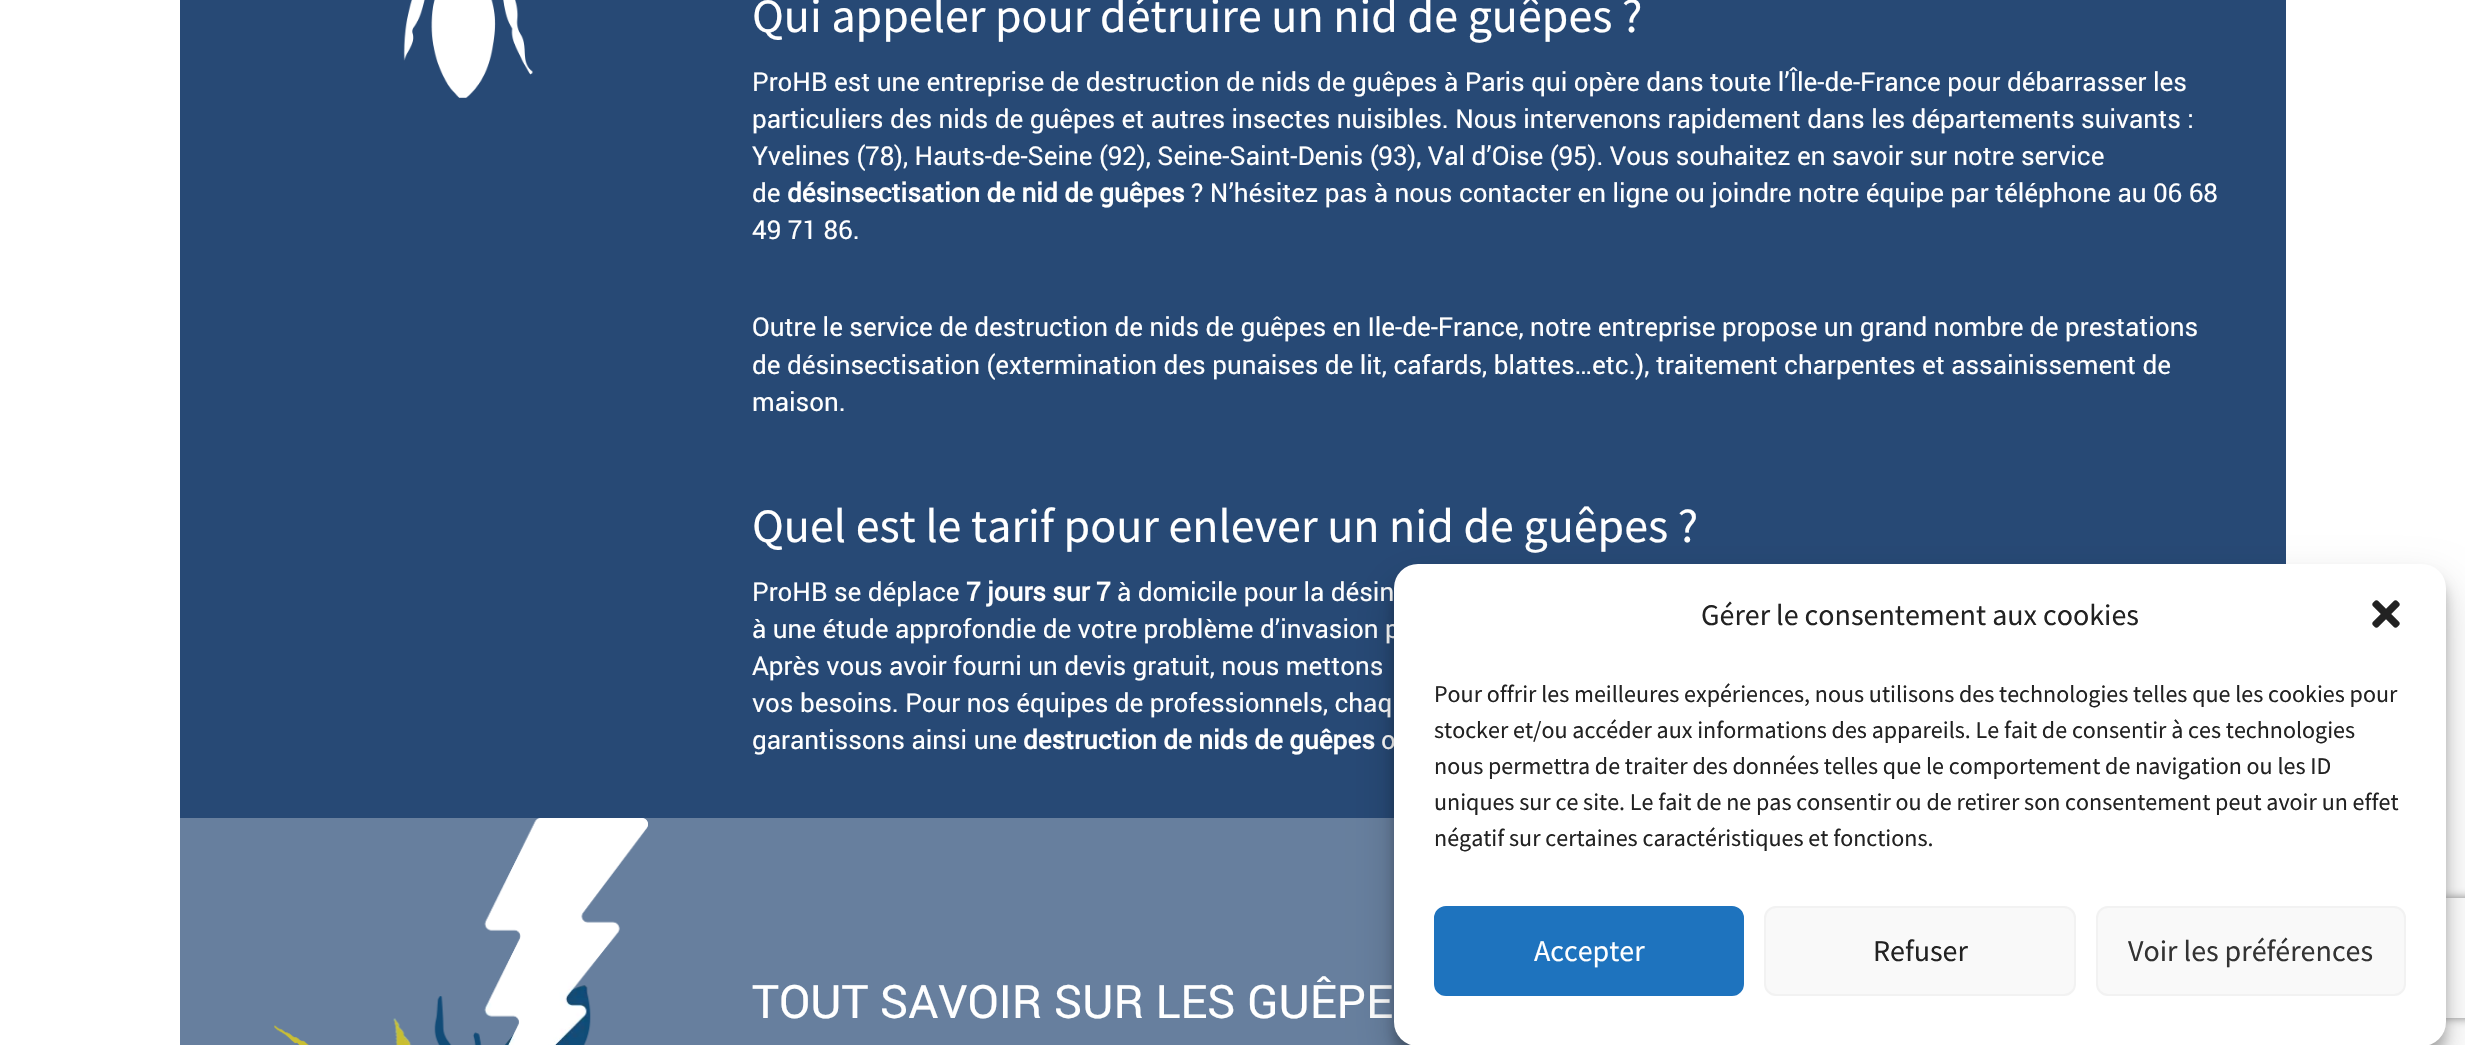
void draw(SkCanvas* canvas) {
    SkPaint paint;
    paint.setAntiAlias(true);
    canvas->clear(0xFFFFFFFF);
    paint.setColor(0xFF274975);
    canvas->drawRect(SkRect::MakeXYWH(180, 0, 2106, 818), paint);
    canvas->drawImageRect(SkImages::DeferredFromEncodedData(SkData::MakeFromFileName("img1.png")), SkRect::MakeXYWH(403, 0, 130, 98), SkSamplingOptions());
    SkFont font1(fontMgr->matchFamilyStyle("Source Sans Pro", SkFontStyle::Normal()), 48);
    font1.setSubpixel(true);
    paint.setColor(0xFFFFFFFF);
    canvas->drawString("Qui appeler pour détruire un nid de guêpes ?", 752, 32, font1, paint);
    SkFont font2(fontMgr->matchFamilyStyle("Roboto", SkFontStyle::Normal()), 26);
    font2.setSubpixel(true);
    canvas->drawString("ProHB est une entreprise de destruction de nids de guêpes à Paris qui opère dans toute l’Île-de-France pour débarrasser les", 752, 91, font2, paint);
    canvas->drawString("particuliers des nids de guêpes et autres insectes nuisibles. Nous intervenons rapidement dans les départements suivants :", 752, 128, font2, paint);
    canvas->drawString("Yvelines (78), Hauts-de-Seine (92), Seine-Saint-Denis (93), Val d’Oise (95). Vous souhaitez en savoir sur notre service", 752, 165, font2, paint);
    canvas->drawString("de", 752, 202, font2, paint);
    SkFont font3(fontMgr->matchFamilyStyle("Roboto", SkFontStyle::Bold()), 26);
    font3.setSubpixel(true);
    canvas->drawString("désinsectisation de nid de guêpes", 787, 202, font3, paint);
    canvas->drawString("? N’hésitez pas à nous contacter en ligne ou joindre notre équipe par téléphone au 06 68", 1191, 202, font2, paint);
    canvas->drawString("49 71 86.", 752, 239, font2, paint);
    canvas->drawString("Outre le service de destruction de nids de guêpes en Ile-de-France, notre entreprise propose un grand nombre de prestations", 752, 336, font2, paint);
    canvas->drawString("de désinsectisation (extermination des punaises de lit, cafards, blattes…etc.), traitement charpentes et assainissement de", 752, 374, font2, paint);
    canvas->drawString("maison.", 752, 411, font2, paint);
    canvas->drawString("Quel est le tarif pour enlever un nid de guêpes ?", 752, 542, font1, paint);
    canvas->drawString("ProHB se déplace", 752, 601, font2, paint);
    canvas->drawString("7 jours sur 7", 966, 601, font3, paint);
    canvas->drawString("à domicile pour la désin", 1117, 601, font2, paint);
    canvas->drawString("à une étude approfondie de votre problème d’invasion p", 752, 638, font2, paint);
    canvas->drawString("Après vous avoir fourni un devis gratuit, nous mettons", 752, 675, font2, paint);
    canvas->drawString("vos besoins. Pour nos équipes de professionnels, chaq", 752, 712, font2, paint);
    canvas->drawString("garantissons ainsi une", 752, 749, font2, paint);
    canvas->drawString("destruction de nids de guêpes", 1023, 749, font3, paint);
    canvas->drawString("o", 1381, 749, font2, paint);
    paint.setColor(0xFF677F9E);
    canvas->drawRect(SkRect::MakeXYWH(180, 818, 1231, 227), paint);
    canvas->drawImageRect(SkImages::DeferredFromEncodedData(SkData::MakeFromFileName("img2.png")), SkRect::MakeXYWH(274, 818, 374, 227), SkSamplingOptions());
    SkFont font4(fontMgr->matchFamilyStyle("Roboto", SkFontStyle::Normal()), 46);
    font4.setSubpixel(true);
    paint.setColor(0xFFFFFFFF);
    canvas->drawString("TOUT SAVOIR SUR LES GUÊPE", 752, 1018, font4, paint);
    paint.setColor(0x3B000000);
    paint.setMaskFilter(SkMaskFilter::MakeBlur(kNormal_SkBlurStyle, 6));
    canvas->drawRoundRect(SkRect::MakeXYWH(1394, 576, 1052, 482), 24, 24, paint);
    paint.setMaskFilter(nullptr);
    paint.setColor(0x30000000);
    paint.setMaskFilter(SkMaskFilter::MakeBlur(kNormal_SkBlurStyle, 20));
    canvas->drawRoundRect(SkRect::MakeXYWH(1394, 584, 1052, 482), 24, 24, paint);
    paint.setMaskFilter(nullptr);
    canvas->save();
    canvas->clipPath(SkPathBuilder(SkPathFillType::kEvenOdd).moveTo(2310, 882).lineTo(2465, 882).lineTo(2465, 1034).lineTo(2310, 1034).close().moveTo(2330, 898).lineTo(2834, 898).cubicTo(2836, 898, 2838, 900, 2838, 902).lineTo(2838, 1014).cubicTo(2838, 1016, 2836, 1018, 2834, 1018).lineTo(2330, 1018).cubicTo(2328, 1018, 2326, 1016, 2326, 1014).lineTo(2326, 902).cubicTo(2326, 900, 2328, 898, 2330, 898).close().detach(), true);
    paint.setColor(0xFF808080);
    paint.setMaskFilter(SkMaskFilter::MakeBlur(kNormal_SkBlurStyle, 5));
    canvas->drawRoundRect(SkRect::MakeXYWH(2326, 898, 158, 120), 4, 4, paint);
    paint.setMaskFilter(nullptr);
    canvas->restore();
    paint.setColor(0xFFFFFFFF);
    canvas->drawRoundRect(SkRect::MakeXYWH(1394, 564, 1052, 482), 24, 24, paint);
    SkFont font5(fontMgr->matchFamilyStyle("Source Sans Pro", SkFontStyle::Normal()), 30);
    font5.setSubpixel(true);
    paint.setColor(0xFF222222);
    canvas->drawString("Gérer le consentement aux cookies", 1701, 625, font5, paint);
    canvas->drawImageRect(SkImages::DeferredFromEncodedData(SkData::MakeFromFileName("img3.png")), SkRect::MakeXYWH(2372, 600, 28, 28), SkSamplingOptions());
    SkFont font6(fontMgr->matchFamilyStyle("Source Sans Pro", SkFontStyle::Normal()), 24);
    font6.setSubpixel(true);
    canvas->drawString("Pour offrir les meilleures expériences, nous utilisons des technologies telles que les cookies pour", 1434, 702, font6, paint);
    canvas->drawString("stocker et/ou accéder aux informations des appareils. Le fait de consentir à ces technologies", 1434, 738, font6, paint);
    canvas->drawString("nous permettra de traiter des données telles que le comportement de navigation ou les ID", 1434, 774, font6, paint);
    canvas->drawString("uniques sur ce site. Le fait de ne pas consentir ou de retirer son consentement peut avoir un effet", 1434, 810, font6, paint);
    canvas->drawString("négatif sur certaines caractéristiques et fonctions.", 1434, 846, font6, paint);
    paint.setColor(0xFF1E73BE);
    canvas->drawRoundRect(SkRect::MakeXYWH(1435, 907, 308, 88), 11, 11, paint);
    paint.setStyle(SkPaint::kStroke_Style);
    paint.setStrokeWidth(2);
    canvas->drawRoundRect(SkRect::MakeXYWH(1435, 907, 308, 88), 11, 11, paint);
    paint.setStyle(SkPaint::kFill_Style);
    paint.setColor(0xFFFFFFFF);
    canvas->drawString("Accepter", 1534, 961, font5, paint);
    paint.setColor(0xFFF9F9F9);
    canvas->drawRoundRect(SkRect::MakeXYWH(1765, 907, 310, 88), 11, 11, paint);
    paint.setStyle(SkPaint::kStroke_Style);
    paint.setColor(0xFFF2F2F2);
    canvas->drawRoundRect(SkRect::MakeXYWH(1765, 907, 310, 88), 11, 11, paint);
    paint.setStyle(SkPaint::kFill_Style);
    paint.setColor(0xFF222222);
    canvas->drawString("Refuser", 1873, 961, font5, paint);
    paint.setColor(0xFFF9F9F9);
    canvas->drawRoundRect(SkRect::MakeXYWH(2097, 907, 308, 88), 11, 11, paint);
    paint.setStyle(SkPaint::kStroke_Style);
    paint.setColor(0xFFF2F2F2);
    canvas->drawRoundRect(SkRect::MakeXYWH(2097, 907, 308, 88), 11, 11, paint);
    paint.setStyle(SkPaint::kFill_Style);
    paint.setColor(0xFF333333);
    canvas->drawString("Voir les préférences", 2128, 961, font5, paint);
}
